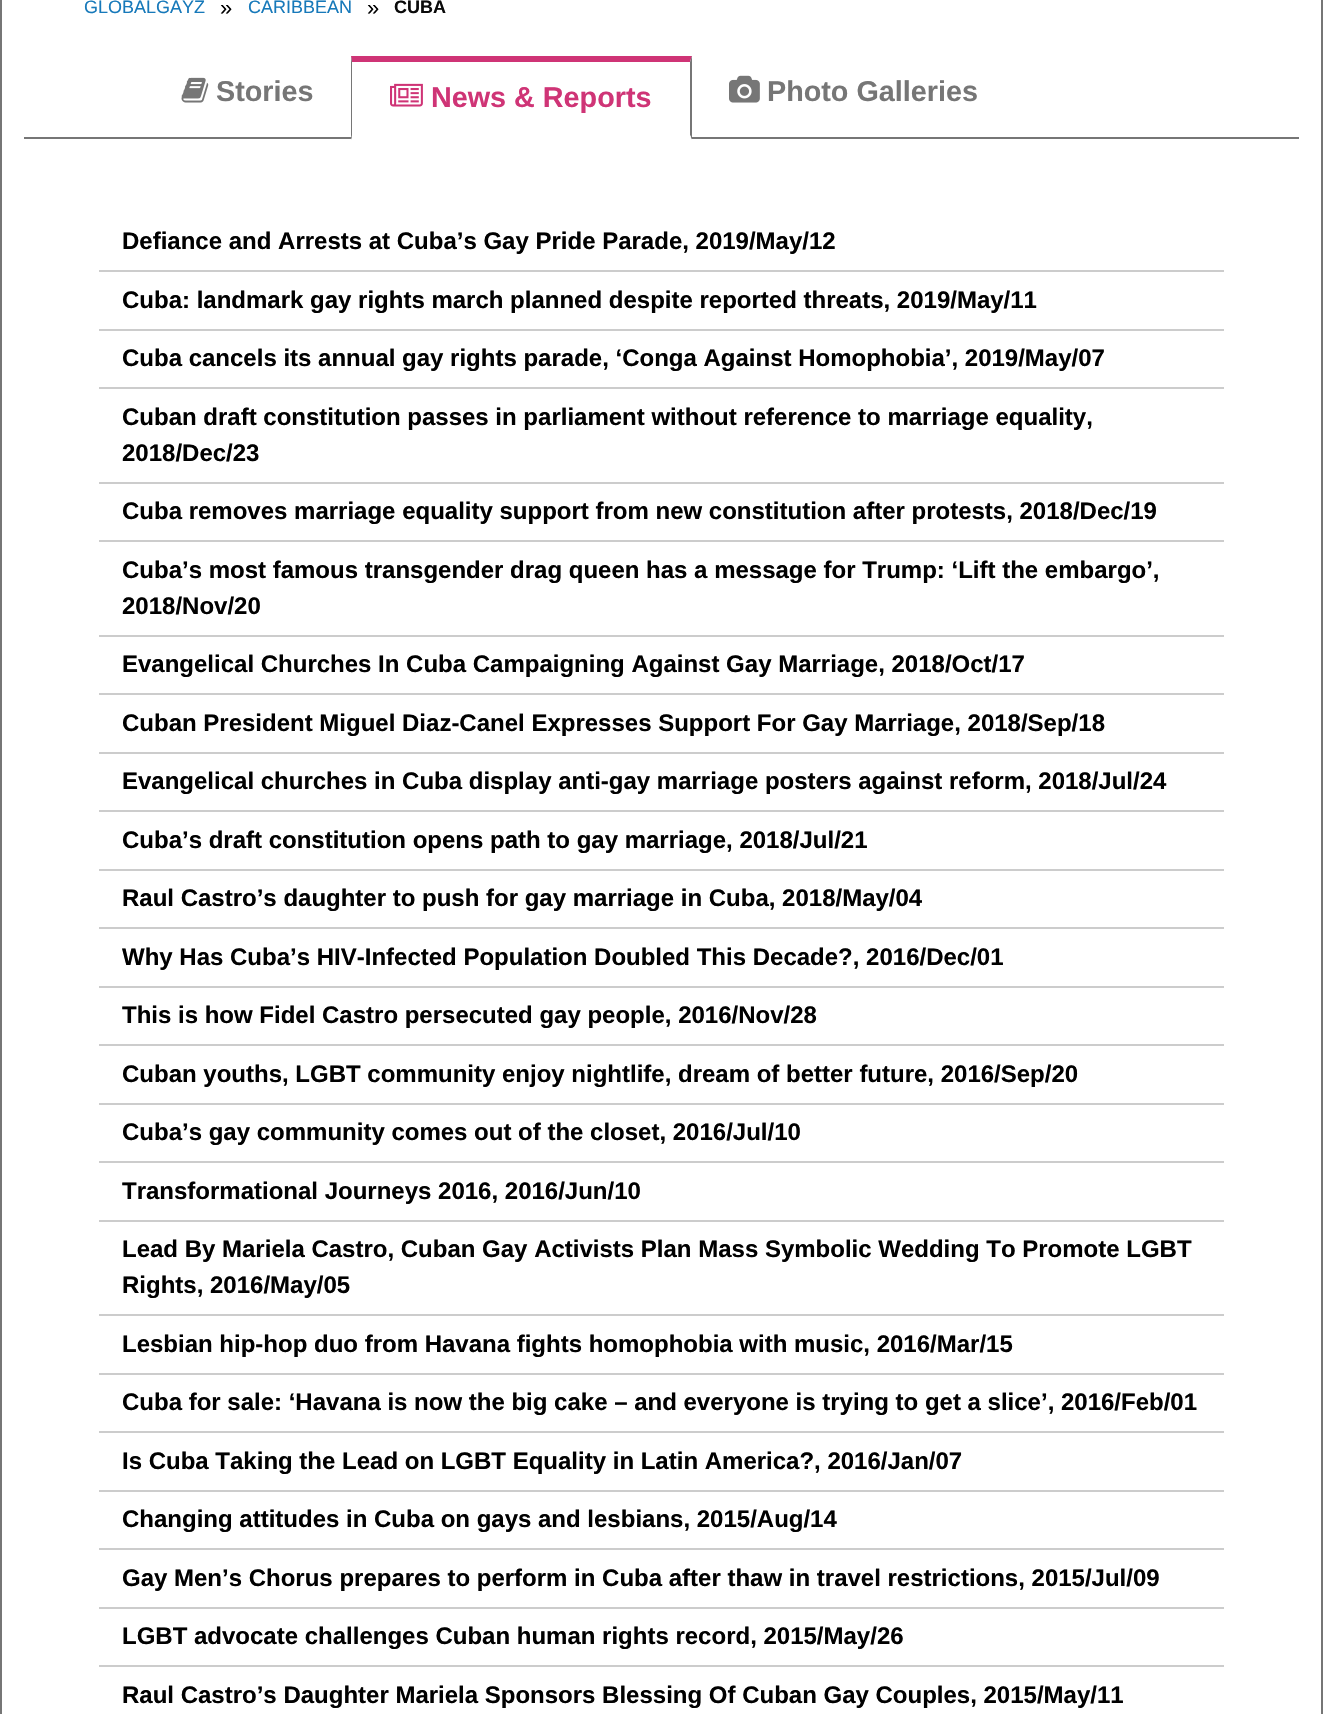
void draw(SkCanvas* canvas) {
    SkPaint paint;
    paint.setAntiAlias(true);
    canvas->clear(0xFFFFFFFF);
    paint.setStyle(SkPaint::kStroke_Style);
    paint.setStrokeWidth(2);
    paint.setColor(0xFF767676);
    canvas->drawRect(SkRect::MakeXYWH(1, -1, 1321, 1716), paint);
    SkFont font1(fontMgr->matchFamilyStyle("Liberation Sans", SkFontStyle::Normal()), 18);
    font1.setSubpixel(true);
    paint.setStyle(SkPaint::kFill_Style);
    paint.setColor(0xFF1779BA);
    canvas->drawString("GLOBALGAYZ", 84, 13, font1, paint);
    SkFont font2(fontMgr->matchFamilyStyle("Liberation Sans", SkFontStyle::Normal()), 22);
    font2.setSubpixel(true);
    paint.setColor(0xFF000000);
    canvas->drawString("»", 220, 15, font2, paint);
    paint.setColor(0xFF1779BA);
    canvas->drawString("CARIBBEAN", 248, 13, font1, paint);
    paint.setColor(0xFF000000);
    canvas->drawString("»", 367, 15, font2, paint);
    SkFont font3(fontMgr->matchFamilyStyle("Liberation Sans", SkFontStyle::Bold()), 18);
    font3.setSubpixel(true);
    paint.setColor(0xFF0A0A0A);
    canvas->drawString("CUBA", 394, 13, font3, paint);
    paint.setColor(0xFF767676);
    canvas->drawRect(SkRect::MakeXYWH(24, 137, 1275, 2), paint);
    canvas->drawImageRect(SkImages::DeferredFromEncodedData(SkData::MakeFromFileName("img1.png")), SkRect::MakeXYWH(181, 77, 28, 26), SkSamplingOptions());
    SkFont font4(fontMgr->matchFamilyStyle("Liberation Sans", SkFontStyle::Bold()), 28.75f);
    font4.setSubpixel(true);
    canvas->drawString("Stories", 216, 101, font4, paint);
    paint.setColor(0xFFCF3476);
    canvas->drawPath(SkPathBuilder().moveTo(351, 56).lineTo(692, 56).lineTo(690, 62).lineTo(352, 62).close().detach(), paint);
    paint.setColor(0xFF767676);
    canvas->drawPath(SkPathBuilder().moveTo(692, 56).lineTo(692, 140).lineTo(690, 135).lineTo(690, 62).close().detach(), paint);
    paint.setColor(0xFFFFFFFF);
    canvas->drawPath(SkPathBuilder().moveTo(692, 140).lineTo(351, 140).lineTo(352, 135).lineTo(690, 135).close().detach(), paint);
    paint.setColor(0xFF767676);
    canvas->drawPath(SkPathBuilder().moveTo(351, 140).lineTo(351, 56).lineTo(352, 62).lineTo(352, 135).close().detach(), paint);
    canvas->drawImageRect(SkImages::DeferredFromEncodedData(SkData::MakeFromFileName("img2.png")), SkRect::MakeXYWH(390, 83, 33, 24), SkSamplingOptions());
    paint.setColor(0xFFCF3476);
    canvas->drawString("News & Reports", 431, 107, font4, paint);
    canvas->drawImageRect(SkImages::DeferredFromEncodedData(SkData::MakeFromFileName("img3.png")), SkRect::MakeXYWH(729, 75, 31, 28), SkSamplingOptions());
    paint.setColor(0xFF767676);
    canvas->drawString("Photo Galleries", 767, 101, font4, paint);
    paint.setColor(0xFFCCCCCC);
    canvas->drawRect(SkRect::MakeXYWH(99, 270, 1125, 2), paint);
    SkFont font5(fontMgr->matchFamilyStyle("Liberation Sans", SkFontStyle::Bold()), 24);
    font5.setSubpixel(true);
    paint.setColor(0xFF000000);
    canvas->drawString("Defiance and Arrests at Cuba’s Gay Pride Parade, 2019/May/12", 122, 249, font5, paint);
    paint.setColor(0xFFCCCCCC);
    canvas->drawRect(SkRect::MakeXYWH(99, 329, 1125, 2), paint);
    paint.setColor(0xFF000000);
    canvas->drawString("Cuba: landmark gay rights march planned despite reported threats, 2019/May/11", 122, 308, font5, paint);
    paint.setColor(0xFFCCCCCC);
    canvas->drawRect(SkRect::MakeXYWH(99, 387, 1125, 2), paint);
    paint.setColor(0xFF000000);
    canvas->drawString("Cuba cancels its annual gay rights parade, ‘Conga Against Homophobia’, 2019/May/07", 122, 366, font5, paint);
    paint.setColor(0xFFCCCCCC);
    canvas->drawRect(SkRect::MakeXYWH(99, 482, 1125, 2), paint);
    paint.setColor(0xFF000000);
    canvas->drawString("Cuban draft constitution passes in parliament without reference to marriage equality,", 122, 425, font5, paint);
    canvas->drawString("2018/Dec/23", 122, 461, font5, paint);
    paint.setColor(0xFFCCCCCC);
    canvas->drawRect(SkRect::MakeXYWH(99, 540, 1125, 2), paint);
    paint.setColor(0xFF000000);
    canvas->drawString("Cuba removes marriage equality support from new constitution after protests, 2018/Dec/19", 122, 519, font5, paint);
    paint.setColor(0xFFCCCCCC);
    canvas->drawRect(SkRect::MakeXYWH(99, 635, 1125, 2), paint);
    paint.setColor(0xFF000000);
    canvas->drawString("Cuba’s most famous transgender drag queen has a message for Trump: ‘Lift the embargo’,", 122, 578, font5, paint);
    canvas->drawString("2018/Nov/20", 122, 614, font5, paint);
    paint.setColor(0xFFCCCCCC);
    canvas->drawRect(SkRect::MakeXYWH(99, 693, 1125, 2), paint);
    paint.setColor(0xFF000000);
    canvas->drawString("Evangelical Churches In Cuba Campaigning Against Gay Marriage, 2018/Oct/17", 122, 672, font5, paint);
    paint.setColor(0xFFCCCCCC);
    canvas->drawRect(SkRect::MakeXYWH(99, 752, 1125, 2), paint);
    paint.setColor(0xFF000000);
    canvas->drawString("Cuban President Miguel Diaz-Canel Expresses Support For Gay Marriage, 2018/Sep/18", 122, 731, font5, paint);
    paint.setColor(0xFFCCCCCC);
    canvas->drawRect(SkRect::MakeXYWH(99, 810, 1125, 2), paint);
    paint.setColor(0xFF000000);
    canvas->drawString("Evangelical churches in Cuba display anti-gay marriage posters against reform, 2018/Jul/24", 122, 789, font5, paint);
    paint.setColor(0xFFCCCCCC);
    canvas->drawRect(SkRect::MakeXYWH(99, 869, 1125, 2), paint);
    paint.setColor(0xFF000000);
    canvas->drawString("Cuba’s draft constitution opens path to gay marriage, 2018/Jul/21", 122, 848, font5, paint);
    paint.setColor(0xFFCCCCCC);
    canvas->drawRect(SkRect::MakeXYWH(99, 927, 1125, 2), paint);
    paint.setColor(0xFF000000);
    canvas->drawString("Raul Castro’s daughter to push for gay marriage in Cuba, 2018/May/04", 122, 906, font5, paint);
    paint.setColor(0xFFCCCCCC);
    canvas->drawRect(SkRect::MakeXYWH(99, 986, 1125, 2), paint);
    paint.setColor(0xFF000000);
    canvas->drawString("Why Has Cuba’s HIV-Infected Population Doubled This Decade?, 2016/Dec/01", 122, 965, font5, paint);
    paint.setColor(0xFFCCCCCC);
    canvas->drawRect(SkRect::MakeXYWH(99, 1044, 1125, 2), paint);
    paint.setColor(0xFF000000);
    canvas->drawString("This is how Fidel Castro persecuted gay people, 2016/Nov/28", 122, 1023, font5, paint);
    paint.setColor(0xFFCCCCCC);
    canvas->drawRect(SkRect::MakeXYWH(99, 1103, 1125, 2), paint);
    paint.setColor(0xFF000000);
    canvas->drawString("Cuban youths, LGBT community enjoy nightlife, dream of better future, 2016/Sep/20", 122, 1082, font5, paint);
    paint.setColor(0xFFCCCCCC);
    canvas->drawRect(SkRect::MakeXYWH(99, 1161, 1125, 2), paint);
    paint.setColor(0xFF000000);
    canvas->drawString("Cuba’s gay community comes out of the closet, 2016/Jul/10", 122, 1140, font5, paint);
    paint.setColor(0xFFCCCCCC);
    canvas->drawRect(SkRect::MakeXYWH(99, 1220, 1125, 2), paint);
    paint.setColor(0xFF000000);
    canvas->drawString("Transformational Journeys 2016, 2016/Jun/10", 122, 1199, font5, paint);
    paint.setColor(0xFFCCCCCC);
    canvas->drawRect(SkRect::MakeXYWH(99, 1314, 1125, 2), paint);
    paint.setColor(0xFF000000);
    canvas->drawString("Lead By Mariela Castro, Cuban Gay Activists Plan Mass Symbolic Wedding To Promote LGBT", 122, 1257, font5, paint);
    canvas->drawString("Rights, 2016/May/05", 122, 1293, font5, paint);
    paint.setColor(0xFFCCCCCC);
    canvas->drawRect(SkRect::MakeXYWH(99, 1373, 1125, 2), paint);
    paint.setColor(0xFF000000);
    canvas->drawString("Lesbian hip-hop duo from Havana fights homophobia with music, 2016/Mar/15", 122, 1352, font5, paint);
    paint.setColor(0xFFCCCCCC);
    canvas->drawRect(SkRect::MakeXYWH(99, 1431, 1125, 2), paint);
    paint.setColor(0xFF000000);
    canvas->drawString("Cuba for sale: ‘Havana is now the big cake – and everyone is trying to get a slice’, 2016/Feb/01", 122, 1410, font5, paint);
    paint.setColor(0xFFCCCCCC);
    canvas->drawRect(SkRect::MakeXYWH(99, 1490, 1125, 2), paint);
    paint.setColor(0xFF000000);
    canvas->drawString("Is Cuba Taking the Lead on LGBT Equality in Latin America?, 2016/Jan/07", 122, 1469, font5, paint);
    paint.setColor(0xFFCCCCCC);
    canvas->drawRect(SkRect::MakeXYWH(99, 1548, 1125, 2), paint);
    paint.setColor(0xFF000000);
    canvas->drawString("Changing attitudes in Cuba on gays and lesbians, 2015/Aug/14", 122, 1527, font5, paint);
    paint.setColor(0xFFCCCCCC);
    canvas->drawRect(SkRect::MakeXYWH(99, 1607, 1125, 2), paint);
    paint.setColor(0xFF000000);
    canvas->drawString("Gay Men’s Chorus prepares to perform in Cuba after thaw in travel restrictions, 2015/Jul/09", 122, 1586, font5, paint);
    paint.setColor(0xFFCCCCCC);
    canvas->drawRect(SkRect::MakeXYWH(99, 1665, 1125, 2), paint);
    paint.setColor(0xFF000000);
    canvas->drawString("LGBT advocate challenges Cuban human rights record, 2015/May/26", 122, 1644, font5, paint);
    canvas->drawString("Raul Castro’s Daughter Mariela Sponsors Blessing Of Cuban Gay Couples, 2015/May/11", 122, 1703, font5, paint);
}
